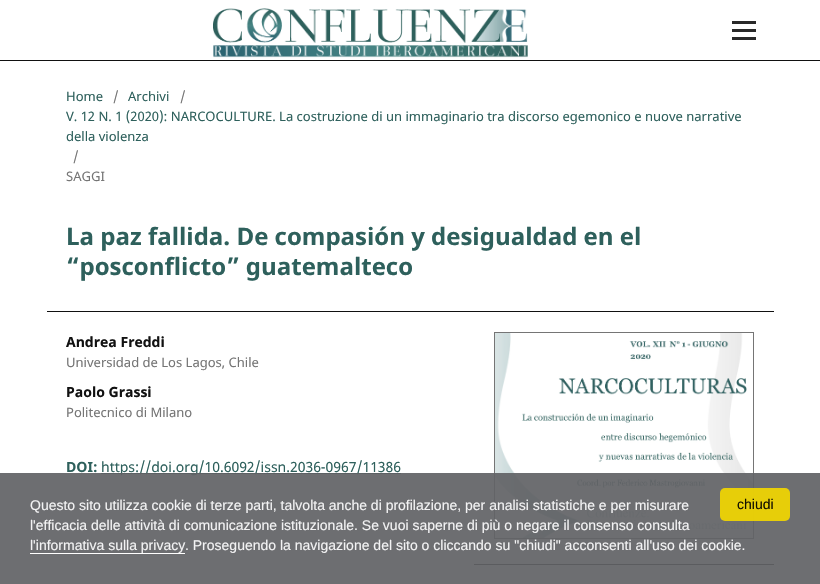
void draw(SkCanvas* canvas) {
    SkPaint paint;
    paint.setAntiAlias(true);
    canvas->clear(0xFFFFFFFF);
    paint.setColor(0xFF111111);
    canvas->drawRect(SkRect::MakeXYWH(0, 60, 820, 1), paint);
    canvas->drawImageRect(SkImages::DeferredFromEncodedData(SkData::MakeFromFileName("img1.png")), SkRect::MakeXYWH(213, 8, 315, 50), SkSamplingOptions());
    paint.setColor(0xFF292929);
    canvas->drawRect(SkRect::MakeXYWH(732, 37, 24, 3), paint);
    canvas->drawRect(SkRect::MakeXYWH(732, 21, 24, 3), paint);
    canvas->drawRect(SkRect::MakeXYWH(732, 29, 24, 3), paint);
    paint.setColor(0xFF111111);
    canvas->drawRect(SkRect::MakeXYWH(46, 311, 728, 1), paint);
    paint.setColor(0xFFFFFFFF);
    canvas->drawRect(SkRect::MakeXYWH(46, 311, 1, 1), paint);
    SkFont font1(fontMgr->matchFamilyStyle("Noto Sans", SkFontStyle::Normal()), 13.02f);
    font1.setSubpixel(true);
    paint.setColor(0xFF2E605C);
    canvas->drawString("Home", 66, 101, font1, paint);
    paint.setColor(0xFF757575);
    canvas->drawString("/", 113, 101, font1, paint);
    paint.setColor(0xFF2E605C);
    canvas->drawString("Archivi", 128, 101, font1, paint);
    paint.setColor(0xFF757575);
    canvas->drawString("/", 180, 101, font1, paint);
    paint.setColor(0xFF2E605C);
    canvas->drawString("V. 12 N. 1 (2020): NARCOCULTURE. La costruzione di un immaginario tra discorso egemonico e nuove narrative", 66, 121, font1, paint);
    canvas->drawString("della violenza", 66, 141, font1, paint);
    paint.setColor(0xFF757575);
    canvas->drawString("/", 73, 161, font1, paint);
    canvas->drawString("SAGGI", 66, 181, font1, paint);
    SkFont font2(fontMgr->matchFamilyStyle("Noto Sans", SkFontStyle::Bold()), 24);
    font2.setSubpixel(true);
    paint.setColor(0xFF2E605C);
    canvas->drawString("La paz fallida. De compasión y desigualdad en el", 66, 245, font2, paint);
    canvas->drawString("“posconflicto” guatemalteco", 66, 275, font2, paint);
    SkFont font3(fontMgr->matchFamilyStyle("Noto Sans", SkFontStyle::Bold()), 14);
    font3.setSubpixel(true);
    paint.setColor(0xFF111111);
    canvas->drawString("Andrea Freddi", 66, 347, font3, paint);
    paint.setColor(0xFF757575);
    canvas->drawString("Universidad de Los Lagos, Chile", 66, 367, font1, paint);
    paint.setColor(0xFF111111);
    canvas->drawString("Paolo Grassi", 66, 397, font3, paint);
    paint.setColor(0xFF757575);
    canvas->drawString("Politecnico di Milano", 66, 417, font1, paint);
    paint.setColor(0xFF2E605C);
    canvas->drawString("DOI:", 66, 472, font3, paint);
    canvas->drawRect(SkRect::MakeXYWH(101, 473, 300, 1), paint);
    SkFont font4(fontMgr->matchFamilyStyle("Noto Sans", SkFontStyle::Normal()), 14);
    font4.setSubpixel(true);
    canvas->drawString("https://doi.org/10.6092/issn.2036-0967/11386", 101, 472, font4, paint);
    paint.setColor(0xFF111111);
    canvas->drawRect(SkRect::MakeXYWH(474, 564, 300, 1), paint);
    paint.setStyle(SkPaint::kStroke_Style);
    paint.setStrokeWidth(1);
    paint.setColor(0xFF757575);
    canvas->drawRect(SkRect::MakeXYWH(494.5f, 332.5f, 259, 206), paint);
    canvas->drawImageRect(SkImages::DeferredFromEncodedData(SkData::MakeFromFileName("img2.png")), SkRect::MakeXYWH(495, 333, 258, 205), SkSamplingOptions());
    paint.setStyle(SkPaint::kFill_Style);
    paint.setColor(0xEB616265);
    canvas->drawRect(SkRect::MakeXYWH(0, 473, 820, 111), paint);
    SkFont font5(fontMgr->matchFamilyStyle("Liberation Sans", SkFontStyle::Normal()), 14);
    font5.setSubpixel(true);
    paint.setColor(0xFFF3F3F4);
    canvas->drawString("Questo sito utilizza cookie di terze parti, talvolta anche di profilazione, per analisi statistiche e per misurare", 30, 510, font5, paint);
    canvas->drawString("l'efficacia delle attività di comunicazione istituzionale. Se vuoi saperne di più o negare il consenso consulta", 30, 530, font5, paint);
    canvas->drawString("l'informativa sulla privacy", 30, 550, font5, paint);
    paint.setColor(0xFFFFFFFF);
    canvas->drawRect(SkRect::MakeXYWH(30, 553, 155, 1), paint);
    paint.setColor(0xFFF3F3F4);
    canvas->drawString(". Proseguendo la navigazione del sito o cliccando su \"chiudi\" acconsenti all'uso dei cookie.", 185, 550, font5, paint);
    paint.setColor(0xEBF1D600);
    canvas->drawRoundRect(SkRect::MakeXYWH(720, 488, 70, 33), 5, 5, paint);
    paint.setColor(0xFF121001);
    canvas->drawString("chiudi", 737, 509, font5, paint);
}
